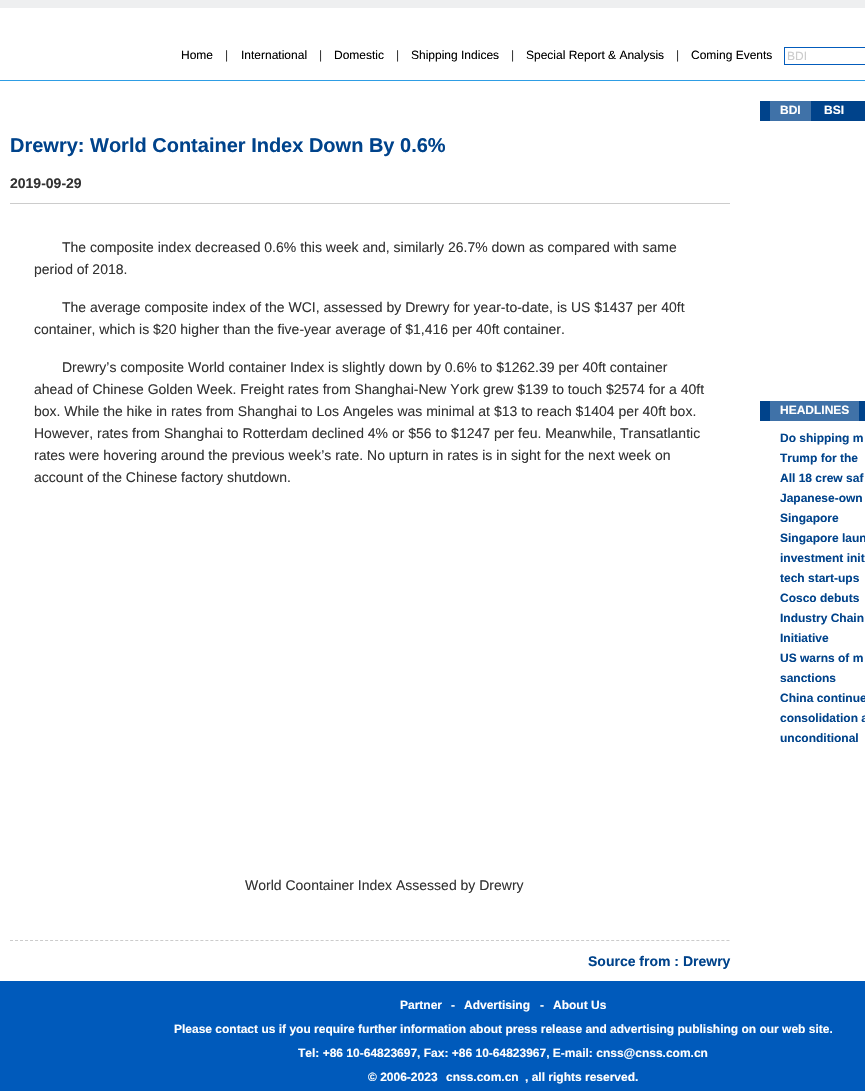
void draw(SkCanvas* canvas) {
    SkPaint paint;
    paint.setAntiAlias(true);
    canvas->clear(0xFFEEEFF0);
    paint.setColor(0xFFFFFFFF);
    canvas->drawRect(SkRect::MakeXYWH(0, 8, 865, 72), paint);
    paint.setColor(0xFF2E9DE4);
    canvas->drawRect(SkRect::MakeXYWH(0, 80, 865, 1), paint);
    SkFont font1(fontMgr->matchFamilyStyle("Liberation Sans", SkFontStyle::Normal()), 12);
    font1.setSubpixel(true);
    paint.setColor(0xFF000000);
    canvas->drawString("Home", 181, 59, font1, paint);
    paint.setColor(0xFF333333);
    canvas->drawString("|", 225, 59, font1, paint);
    paint.setColor(0xFF000000);
    canvas->drawString("International", 241, 59, font1, paint);
    paint.setColor(0xFF333333);
    canvas->drawString("|", 319, 59, font1, paint);
    paint.setColor(0xFF000000);
    canvas->drawString("Domestic", 334, 59, font1, paint);
    paint.setColor(0xFF333333);
    canvas->drawString("|", 396, 59, font1, paint);
    paint.setColor(0xFF000000);
    canvas->drawString("Shipping Indices", 411, 59, font1, paint);
    paint.setColor(0xFF333333);
    canvas->drawString("|", 511, 59, font1, paint);
    paint.setColor(0xFF000000);
    canvas->drawString("Special Report & Analysis", 526, 59, font1, paint);
    paint.setColor(0xFF333333);
    canvas->drawString("|", 676, 59, font1, paint);
    paint.setColor(0xFF000000);
    canvas->drawString("Coming Events", 691, 59, font1, paint);
    paint.setStyle(SkPaint::kStroke_Style);
    paint.setStrokeWidth(1);
    paint.setColor(0xFF035CBC);
    canvas->drawRect(SkRect::MakeXYWH(784.5f, 47.5f, 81, 17), paint);
    paint.setStyle(SkPaint::kFill_Style);
    paint.setColor(0xFFCCCCCC);
    canvas->drawString("BDI", 787, 60, font1, paint);
    paint.setColor(0xFFFFFFFF);
    canvas->drawRect(SkRect::MakeXYWH(0, 81, 865, 900), paint);
    SkFont font2(fontMgr->matchFamilyStyle("Liberation Sans", SkFontStyle::Bold()), 20);
    font2.setSubpixel(true);
    paint.setColor(0xFF00438B);
    canvas->drawString("Drewry: World Container Index Down By 0.6%", 10, 152, font2, paint);
    SkFont font3(fontMgr->matchFamilyStyle("Liberation Sans", SkFontStyle::Bold()), 14);
    font3.setSubpixel(true);
    paint.setColor(0xFF333333);
    canvas->drawString("2019-09-29", 10, 188, font3, paint);
    paint.setColor(0xFFCCCCCC);
    canvas->drawRect(SkRect::MakeXYWH(10, 203, 720, 1), paint);
    paint.setStyle(SkPaint::kStroke_Style);
    paint.setPathEffect(SkDashPathEffect::Make({{3, 2.01f}}, 0));
    canvas->drawPath(SkPathBuilder().moveTo(10, 940.5f).lineTo(730, 940.5f).detach(), paint);
    paint.setPathEffect(nullptr);
    SkFont font4(fontMgr->matchFamilyStyle("Liberation Sans", SkFontStyle::Normal()), 14);
    font4.setSubpixel(true);
    paint.setStyle(SkPaint::kFill_Style);
    paint.setColor(0xFF333333);
    canvas->drawString("The composite index decreased 0.6% this week and, similarly 26.7% down as compared with same", 62, 252, font4, paint);
    canvas->drawString("period of 2018.", 34, 274, font4, paint);
    canvas->drawString("The average composite index of the WCI, assessed by Drewry for year-to-date, is US $1437 per 40ft", 62, 312, font4, paint);
    canvas->drawString("container, which is $20 higher than the five-year average of $1,416 per 40ft container.", 34, 334, font4, paint);
    canvas->drawString("Drewry’s composite World container Index is slightly down by 0.6% to $1262.39 per 40ft container", 62, 372, font4, paint);
    canvas->drawString("ahead of Chinese Golden Week. Freight rates from Shanghai-New York grew $139 to touch $2574 for a 40ft", 34, 394, font4, paint);
    canvas->drawString("box. While the hike in rates from Shanghai to Los Angeles was minimal at $13 to reach $1404 per 40ft box.", 34, 416, font4, paint);
    canvas->drawString("However, rates from Shanghai to Rotterdam declined 4% or $56 to $1247 per feu. Meanwhile, Transatlantic", 34, 438, font4, paint);
    canvas->drawString("rates were hovering around the previous week’s rate. No upturn in rates is in sight for the next week on", 34, 460, font4, paint);
    canvas->drawString("account of the Chinese factory shutdown.", 34, 482, font4, paint);
    canvas->drawString("World Coontainer Index Assessed by Drewry", 245, 890, font4, paint);
    paint.setColor(0xFF00438B);
    canvas->drawString("Source from : Drewry", 588, 966, font3, paint);
    canvas->drawRect(SkRect::MakeXYWH(760, 101, 105, 20), paint);
    paint.setColor(0xFF4072A8);
    canvas->drawRect(SkRect::MakeXYWH(770, 101, 41, 20), paint);
    SkFont font5(fontMgr->matchFamilyStyle("Liberation Sans", SkFontStyle::Bold()), 12);
    font5.setSubpixel(true);
    paint.setColor(0xFFFFFFFF);
    canvas->drawString("BDI", 780, 114, font5, paint);
    canvas->drawString("BSI", 824, 114, font5, paint);
    paint.setColor(0xFF00438B);
    canvas->drawRect(SkRect::MakeXYWH(760, 401, 105, 20), paint);
    paint.setColor(0xFF4072A8);
    canvas->drawRect(SkRect::MakeXYWH(770, 401, 89, 20), paint);
    paint.setColor(0xFFFFFFFF);
    canvas->drawString("HEADLINES", 780, 414, font5, paint);
    paint.setColor(0xFF00438B);
    canvas->drawString("Do shipping m", 780, 442, font5, paint);
    canvas->drawString("Trump for the", 780, 462, font5, paint);
    canvas->drawString("All 18 crew saf", 780, 482, font5, paint);
    canvas->drawString("Japanese-own", 780, 502, font5, paint);
    canvas->drawString("Singapore", 780, 522, font5, paint);
    canvas->drawString("Singapore laun", 780, 542, font5, paint);
    canvas->drawString("investment init", 780, 562, font5, paint);
    canvas->drawString("tech start-ups", 780, 582, font5, paint);
    canvas->drawString("Cosco debuts", 780, 602, font5, paint);
    canvas->drawString("Industry Chain", 780, 622, font5, paint);
    canvas->drawString("Initiative", 780, 642, font5, paint);
    canvas->drawString("US warns of m", 780, 662, font5, paint);
    canvas->drawString("sanctions", 780, 682, font5, paint);
    canvas->drawString("China continue", 780, 702, font5, paint);
    canvas->drawString("consolidation a", 780, 722, font5, paint);
    canvas->drawString("unconditional", 780, 742, font5, paint);
    paint.setColor(0xFF005ABB);
    canvas->drawRect(SkRect::MakeXYWH(0, 981, 865, 110), paint);
    paint.setColor(0xFFFFFFFF);
    canvas->drawString("Partner", 400, 1009, font5, paint);
    canvas->drawString("-", 451, 1009, font5, paint);
    canvas->drawString("Advertising", 464, 1009, font5, paint);
    canvas->drawString("-", 540, 1009, font5, paint);
    canvas->drawString("About Us", 553, 1009, font5, paint);
    canvas->drawString("Please contact us if you require further information about press release and advertising publishing on our web site.", 174, 1033, font5, paint);
    canvas->drawString("Tel: +86 10-64823697, Fax: +86 10-64823967, E-mail: cnss@cnss.com.cn", 298, 1057, font5, paint);
    canvas->drawString("© 2006-2023", 368, 1081, font5, paint);
    canvas->drawString("cnss.com.cn", 446, 1081, font5, paint);
    canvas->drawString(", all rights reserved.", 525, 1081, font5, paint);
}
